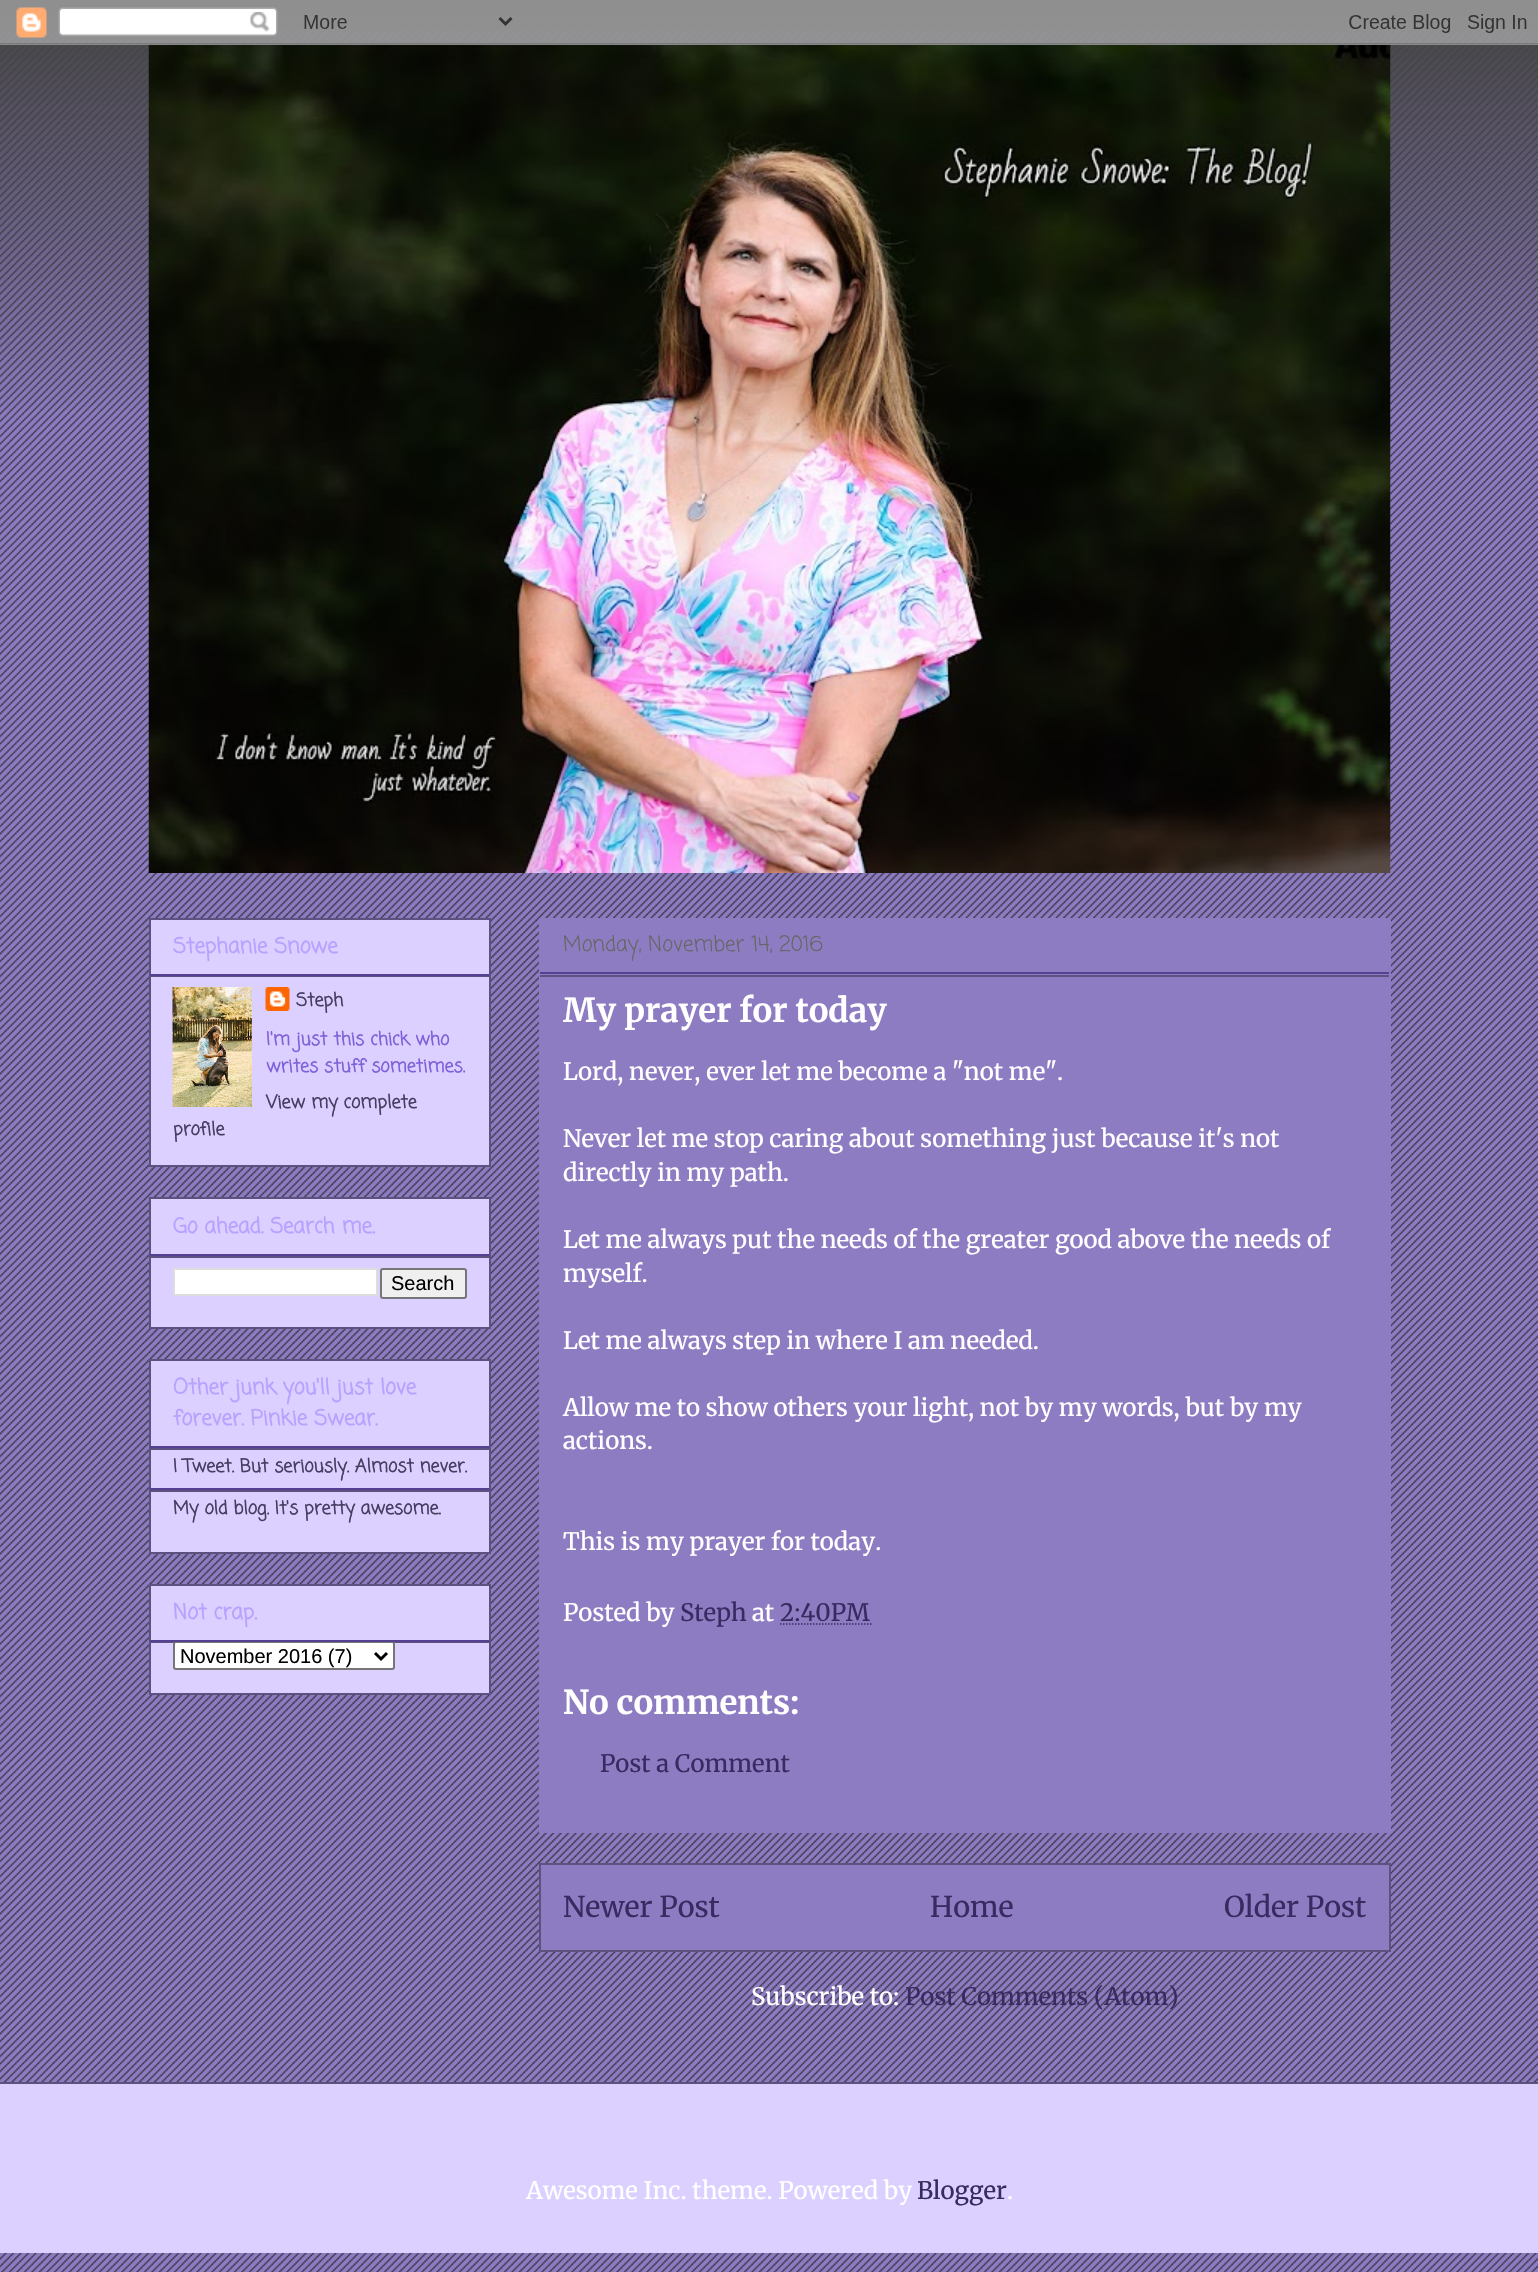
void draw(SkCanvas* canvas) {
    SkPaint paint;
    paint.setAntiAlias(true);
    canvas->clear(0xFF8E7CC3);
    canvas->drawImageRect(SkImages::DeferredFromEncodedData(SkData::MakeFromFileName("img1.png")), SkRect::MakeXYWH(0, 20, 1538, 2252), SkSamplingOptions());
    canvas->drawImageRect(SkImages::DeferredFromEncodedData(SkData::MakeFromFileName("img2.png")), SkRect::MakeXYWH(0, 0, 1538, 411), SkSamplingOptions());
    canvas->drawImageRect(SkImages::DeferredFromEncodedData(SkData::MakeFromFileName("img3.png")), SkRect::MakeXYWH(0, 0, 1538, 45), SkSamplingOptions());
    canvas->drawImageRect(SkImages::DeferredFromEncodedData(SkData::MakeFromFileName("img4.png")), SkRect::MakeXYWH(148, 45, 1243, 828), SkSamplingOptions());
    paint.setColor(0xFFDBD0FF);
    canvas->drawRect(SkRect::MakeXYWH(150, 919, 340, 247), paint);
    paint.setStyle(SkPaint::kStroke_Style);
    paint.setStrokeWidth(2);
    paint.setColor(0xFF5C517F);
    canvas->drawRect(SkRect::MakeXYWH(150, 919, 340, 247), paint);
    paint.setStyle(SkPaint::kFill_Style);
    paint.setColor(0xFF554091);
    canvas->drawRect(SkRect::MakeXYWH(150, 974, 339, 2), paint);
    SkFont font1(fontMgr->matchFamilyStyle("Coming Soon", SkFontStyle::Bold()), 21);
    font1.setSubpixel(true);
    paint.setColor(0xFFB9A2FF);
    canvas->drawString("Stephanie Snowe", 173, 953, font1, paint);
    paint.setColor(0xFF5C517F);
    canvas->drawRect(SkRect::MakeXYWH(150, 976, 339, 1), paint);
    canvas->drawImageRect(SkImages::DeferredFromEncodedData(SkData::MakeFromFileName("img5.png")), SkRect::MakeXYWH(172, 987, 80, 120), SkSamplingOptions());
    canvas->drawImageRect(SkImages::DeferredFromEncodedData(SkData::MakeFromFileName("img6.png")), SkRect::MakeXYWH(265, 987, 25, 24), SkSamplingOptions());
    SkFont font2(fontMgr->matchFamilyStyle("Coming Soon", SkFontStyle::Bold()), 18);
    font2.setSubpixel(true);
    paint.setColor(0xFF463D61);
    canvas->drawString("Steph", 296, 1006, font2, paint);
    paint.setColor(0xFF7F60D9);
    canvas->drawString("I'm just this chick who", 266, 1045, font2, paint);
    canvas->drawString("writes stuff sometimes.", 266, 1072, font2, paint);
    paint.setColor(0xFF463D61);
    canvas->drawString("View my complete", 266, 1108, font2, paint);
    canvas->drawString("profile", 173, 1135, font2, paint);
    paint.setColor(0xFFDBD0FF);
    canvas->drawRect(SkRect::MakeXYWH(150, 1198, 340, 130), paint);
    paint.setStyle(SkPaint::kStroke_Style);
    paint.setColor(0xFF5C517F);
    canvas->drawRect(SkRect::MakeXYWH(150, 1198, 340, 130), paint);
    paint.setStyle(SkPaint::kFill_Style);
    paint.setColor(0xFF554091);
    canvas->drawRect(SkRect::MakeXYWH(150, 1254, 339, 2), paint);
    paint.setColor(0xFFB9A2FF);
    canvas->drawString("Go ahead. Search me.", 173, 1233, font1, paint);
    paint.setColor(0xFF5C517F);
    canvas->drawRect(SkRect::MakeXYWH(150, 1256, 339, 2), paint);
    paint.setColor(0xFFFFFFFF);
    canvas->drawRect(SkRect::MakeXYWH(174, 1269, 203, 26), paint);
    paint.setStyle(SkPaint::kStroke_Style);
    paint.setColor(0xFFDDDDDD);
    canvas->drawRect(SkRect::MakeXYWH(174, 1269, 203, 26), paint);
    paint.setStyle(SkPaint::kFill_Style);
    paint.setColor(0xFFEFEFEF);
    canvas->drawRoundRect(SkRect::MakeXYWH(381, 1269, 85, 29), 2, 2, paint);
    paint.setStyle(SkPaint::kStroke_Style);
    paint.setColor(0xFF767676);
    canvas->drawRoundRect(SkRect::MakeXYWH(381, 1269, 85, 29), 2, 2, paint);
    SkFont font3(fontMgr->matchFamilyStyle("Liberation Sans", SkFontStyle::Normal()), 20);
    font3.setSubpixel(true);
    paint.setStyle(SkPaint::kFill_Style);
    paint.setColor(0xFF000000);
    canvas->drawString("Search", 391, 1290, font3, paint);
    paint.setColor(0xFFDBD0FF);
    canvas->drawRect(SkRect::MakeXYWH(150, 1360, 340, 193), paint);
    paint.setStyle(SkPaint::kStroke_Style);
    paint.setColor(0xFF5C517F);
    canvas->drawRect(SkRect::MakeXYWH(150, 1360, 340, 193), paint);
    paint.setStyle(SkPaint::kFill_Style);
    paint.setColor(0xFF554091);
    canvas->drawRect(SkRect::MakeXYWH(150, 1446, 339, 2), paint);
    paint.setColor(0xFFB9A2FF);
    canvas->drawString("Other junk you'll just love", 173, 1394, font1, paint);
    canvas->drawString("forever. Pinkie Swear.", 173, 1425, font1, paint);
    paint.setColor(0xFF5C517F);
    canvas->drawRect(SkRect::MakeXYWH(150, 1448, 339, 2), paint);
    paint.setColor(0xFF554091);
    canvas->drawRect(SkRect::MakeXYWH(150, 1488, 339, 2), paint);
    paint.setColor(0xFF463D61);
    canvas->drawString("I Tweet. But seriously. Almost never.", 173, 1472, font2, paint);
    paint.setColor(0xFF5C517F);
    canvas->drawRect(SkRect::MakeXYWH(150, 1490, 339, 2), paint);
    paint.setColor(0xFF463D61);
    canvas->drawString("My old blog. It's pretty awesome.", 173, 1514, font2, paint);
    paint.setColor(0xFFDBD0FF);
    canvas->drawRect(SkRect::MakeXYWH(150, 1585, 340, 109), paint);
    paint.setStyle(SkPaint::kStroke_Style);
    paint.setColor(0xFF5C517F);
    canvas->drawRect(SkRect::MakeXYWH(150, 1585, 340, 109), paint);
    paint.setStyle(SkPaint::kFill_Style);
    canvas->drawRect(SkRect::MakeXYWH(150, 1642, 339, 1), paint);
    paint.setColor(0xFFFFFFFF);
    canvas->drawRoundRect(SkRect::MakeXYWH(174, 1642, 220, 27), 2, 2, paint);
    paint.setStyle(SkPaint::kStroke_Style);
    paint.setColor(0xFF767676);
    canvas->drawRoundRect(SkRect::MakeXYWH(174, 1642, 220, 27), 2, 2, paint);
    paint.setStyle(SkPaint::kFill_Style);
    paint.setColor(0xFF554091);
    canvas->drawRect(SkRect::MakeXYWH(150, 1640, 339, 2), paint);
    paint.setColor(0xFFB9A2FF);
    canvas->drawString("Not crap.", 173, 1619, font1, paint);
    paint.setStyle(SkPaint::kStroke_Style);
    paint.setStrokeWidth(3);
    paint.setColor(0xFF000000);
    canvas->drawPath(SkPathBuilder().moveTo(375, 1653).lineTo(381, 1659).lineTo(387, 1653).detach(), paint);
    paint.setStyle(SkPaint::kFill_Style);
    canvas->drawString("November 2016 (7)", 180, 1663, font3, paint);
    paint.setColor(0xFF8E7CC3);
    canvas->drawRect(SkRect::MakeXYWH(539, 918, 852, 915), paint);
    paint.setColor(0xFF554091);
    canvas->drawRect(SkRect::MakeXYWH(540, 972, 849, 2), paint);
    SkFont font4(fontMgr->matchFamilyStyle("Coming Soon", SkFontStyle::Normal()), 21);
    font4.setSubpixel(true);
    paint.setColor(0xFF666666);
    canvas->drawString("Monday, November 14, 2016", 563, 951, font4, paint);
    paint.setColor(0xFF5C517F);
    canvas->drawRect(SkRect::MakeXYWH(540, 975, 849, 2), paint);
    SkFont font5(fontMgr->matchFamilyStyle("Merriweather", SkFontStyle::Bold()), 33);
    font5.setSubpixel(true);
    paint.setColor(0xFFFFFFFF);
    canvas->drawString("My prayer for today", 563, 1022, font5, paint);
    SkFont font6(fontMgr->matchFamilyStyle("Merriweather", SkFontStyle::Normal()), 24);
    font6.setSubpixel(true);
    canvas->drawString("Lord, never, ever let me become a \"not me\".", 563, 1080, font6, paint);
    canvas->drawString("Never let me stop caring about something just because it's not", 563, 1147, font6, paint);
    canvas->drawString("directly in my path.", 563, 1181, font6, paint);
    canvas->drawString("Let me always put the needs of the greater good above the needs of", 563, 1248, font6, paint);
    canvas->drawString("myself.", 563, 1282, font6, paint);
    canvas->drawString("Let me always step in where I am needed.", 563, 1349, font6, paint);
    canvas->drawString("Allow me to show others your light, not by my words, but by my", 563, 1416, font6, paint);
    canvas->drawString("actions.", 563, 1449, font6, paint);
    canvas->drawString("This is my prayer for today.", 563, 1550, font6, paint);
    canvas->drawString("Posted by", 563, 1621, font6, paint);
    paint.setColor(0xFF392B61);
    canvas->drawString("Steph", 680, 1621, font6, paint);
    paint.setColor(0xFFFFFFFF);
    canvas->drawString("at", 752, 1621, font6, paint);
    paint.setColor(0xFF392B61);
    canvas->drawString("2:40 PM", 780, 1621, font6, paint);
    paint.setStyle(SkPaint::kStroke_Style);
    paint.setStrokeWidth(1.5f);
    paint.setPathEffect(SkDashPathEffect::Make({{1.5f, 1.5f}}, 0));
    canvas->drawPath(SkPathBuilder().moveTo(780, 1624).lineTo(873, 1624).detach(), paint);
    paint.setPathEffect(nullptr);
    paint.setStyle(SkPaint::kFill_Style);
    paint.setColor(0xFFFFFFFF);
    canvas->drawString("No comments:", 563, 1714, font5, paint);
    paint.setColor(0xFF392B61);
    canvas->drawString("Post a Comment", 600, 1772, font6, paint);
    paint.setColor(0xFF8E7CC3);
    canvas->drawRect(SkRect::MakeXYWH(540, 1864, 850, 87), paint);
    paint.setStyle(SkPaint::kStroke_Style);
    paint.setStrokeWidth(2);
    paint.setColor(0xFF5C517F);
    canvas->drawRect(SkRect::MakeXYWH(540, 1864, 850, 87), paint);
    SkFont font7(fontMgr->matchFamilyStyle("Merriweather", SkFontStyle::Normal()), 28.75f);
    font7.setSubpixel(true);
    paint.setStyle(SkPaint::kFill_Style);
    paint.setColor(0xFF392B61);
    canvas->drawString("Newer Post", 563, 1917, font7, paint);
    canvas->drawString("Home", 930, 1917, font7, paint);
    canvas->drawString("Older Post", 1224, 1917, font7, paint);
    paint.setColor(0xFFFFFFFF);
    canvas->drawString("Subscribe to:", 751, 2005, font6, paint);
    paint.setColor(0xFF392B61);
    canvas->drawString("Post Comments (Atom)", 905, 2005, font6, paint);
    paint.setColor(0xFFDBD0FF);
    canvas->drawRect(SkRect::MakeXYWH(0, 2084, 1538, 169), paint);
    paint.setColor(0xFF5C517F);
    canvas->drawRect(SkRect::MakeXYWH(0, 2082, 1538, 2), paint);
    paint.setColor(0xFFFFFFFF);
    canvas->drawString("Awesome Inc. theme. Powered by", 526, 2199, font6, paint);
    paint.setColor(0xFF392B61);
    canvas->drawString("Blogger", 917, 2199, font6, paint);
    paint.setColor(0xFFFFFFFF);
    canvas->drawString(".", 1007, 2199, font6, paint);
}
